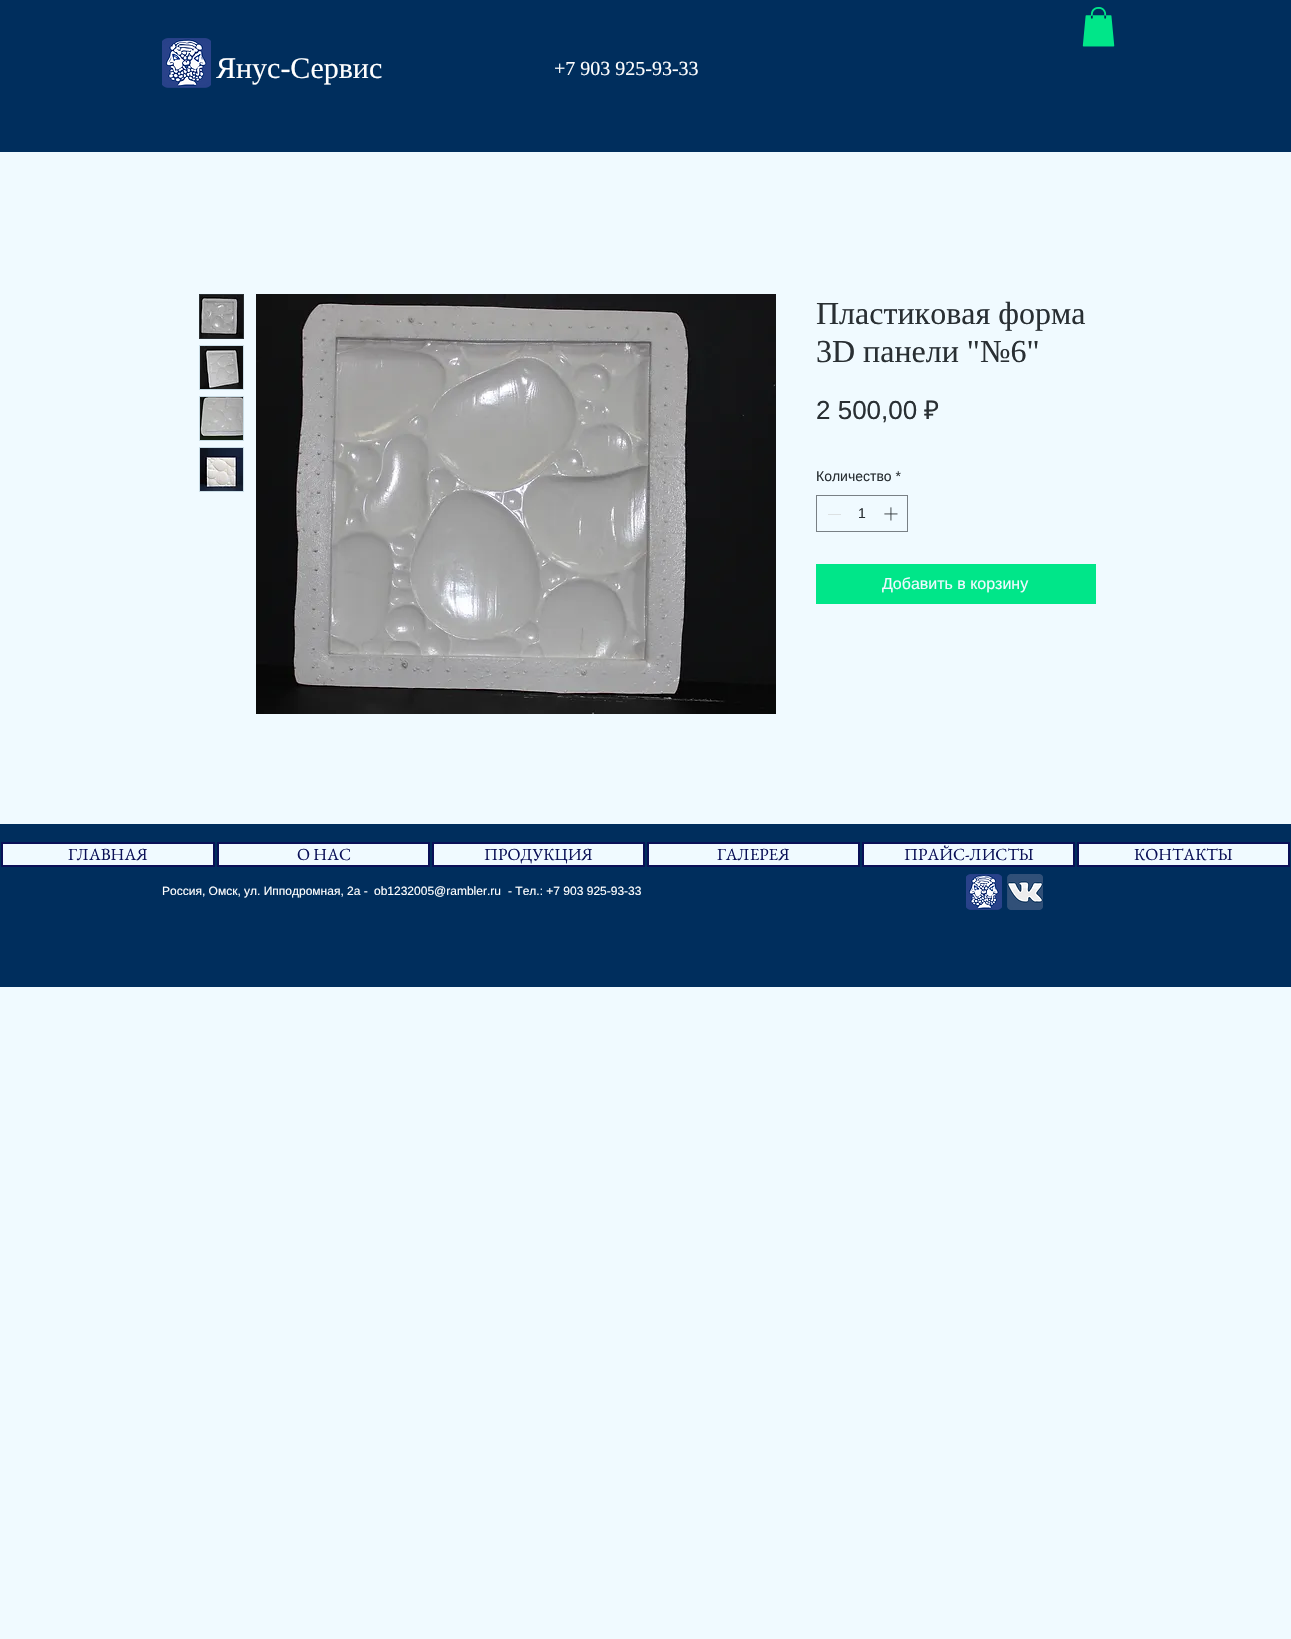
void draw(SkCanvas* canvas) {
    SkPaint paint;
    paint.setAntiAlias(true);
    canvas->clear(0xFFF0FAFF);
    paint.setColor(0xFF002E5D);
    canvas->drawRect(SkRect::MakeXYWH(0, 0, 1291, 152), paint);
    canvas->drawImageRect(SkImages::DeferredFromEncodedData(SkData::MakeFromFileName("img1.png")), SkRect::MakeXYWH(1082, 7, 33, 40), SkSamplingOptions());
    canvas->drawImageRect(SkImages::DeferredFromEncodedData(SkData::MakeFromFileName("img2.png")), SkRect::MakeXYWH(162, 38, 49, 50), SkSamplingOptions());
    SkFont font1(fontMgr->matchFamilyStyle("Liberation Serif", SkFontStyle::Normal()), 30);
    font1.setSubpixel(true);
    paint.setColor(0xFFFFFFFF);
    canvas->drawString("Янус-Сервис", 216, 78, font1, paint);
    SkFont font2(fontMgr->matchFamilyStyle("Liberation Serif", SkFontStyle::Normal()), 20);
    font2.setSubpixel(true);
    canvas->drawString("+7 903 925-93-33", 554, 75, font2, paint);
    paint.setStyle(SkPaint::kStroke_Style);
    paint.setStrokeWidth(1);
    paint.setColor(0xFF292F33);
    canvas->drawRect(SkRect::MakeXYWH(199.5f, 294.5f, 44, 44), paint);
    canvas->drawImageRect(SkImages::DeferredFromEncodedData(SkData::MakeFromFileName("img3.png")), SkRect::MakeXYWH(200, 295, 43, 43), SkSamplingOptions());
    paint.setStyle(SkPaint::kFill_Style);
    paint.setColor(0xFFCADDE6);
    canvas->drawRect(SkRect::MakeXYWH(199, 345, 45, 45), paint);
    canvas->drawImageRect(SkImages::DeferredFromEncodedData(SkData::MakeFromFileName("img4.png")), SkRect::MakeXYWH(200, 346, 43, 43), SkSamplingOptions());
    canvas->drawRect(SkRect::MakeXYWH(199, 396, 45, 45), paint);
    canvas->drawImageRect(SkImages::DeferredFromEncodedData(SkData::MakeFromFileName("img5.png")), SkRect::MakeXYWH(200, 397, 43, 43), SkSamplingOptions());
    canvas->drawRect(SkRect::MakeXYWH(199, 447, 45, 45), paint);
    canvas->drawImageRect(SkImages::DeferredFromEncodedData(SkData::MakeFromFileName("img6.png")), SkRect::MakeXYWH(200, 448, 43, 43), SkSamplingOptions());
    canvas->drawImageRect(SkImages::DeferredFromEncodedData(SkData::MakeFromFileName("img7.png")), SkRect::MakeXYWH(256, 294, 520, 420), SkSamplingOptions());
    SkFont font3(fontMgr->matchFamilyStyle("Liberation Serif", SkFontStyle::Normal()), 32);
    font3.setSubpixel(true);
    paint.setColor(0xFF292F33);
    canvas->drawString("Пластиковая форма", 816, 324, font3, paint);
    canvas->drawString("3D панели \"№6\"", 816, 362, font3, paint);
    SkFont font4(fontMgr->matchFamilyStyle("Liberation Sans", SkFontStyle::Normal()), 26);
    font4.setSubpixel(true);
    canvas->drawString("2 500,00", 816, 419, font4, paint);
    SkFont font5(fontMgr->matchFamilyStyle("Noto Sans", SkFontStyle::Normal()), 26);
    font5.setSubpixel(true);
    canvas->drawString("₽", 924, 419, font5, paint);
    SkFont font6(fontMgr->matchFamilyStyle("Liberation Sans", SkFontStyle::Normal()), 14);
    font6.setSubpixel(true);
    canvas->drawString("Количество *", 816, 481, font6, paint);
    paint.setStyle(SkPaint::kStroke_Style);
    paint.setColor(0xFF798085);
    canvas->drawRect(SkRect::MakeXYWH(816.5f, 495.5f, 91, 36), paint);
    paint.setStyle(SkPaint::kFill_Style);
    paint.setColor(0xFFDCE1E3);
    canvas->drawRect(SkRect::MakeXYWH(828, 514, 13, 1), paint);
    paint.setColor(0xFF292F33);
    canvas->drawString("1", 858, 518, font6, paint);
    canvas->drawImageRect(SkImages::DeferredFromEncodedData(SkData::MakeFromFileName("img8.png")), SkRect::MakeXYWH(884, 507, 14, 14), SkSamplingOptions());
    paint.setColor(0xFF00E689);
    canvas->drawRect(SkRect::MakeXYWH(816, 564, 280, 40), paint);
    SkFont font7(fontMgr->matchFamilyStyle("Liberation Sans", SkFontStyle::Normal()), 16);
    font7.setSubpixel(true);
    paint.setColor(0xFFF0FAFF);
    canvas->drawString("Добавить в корзину", 882, 589, font7, paint);
    paint.setColor(0xFF002E5D);
    canvas->drawRect(SkRect::MakeXYWH(0, 824, 1291, 163), paint);
    paint.setColor(0xFFF0FAFF);
    canvas->drawRect(SkRect::MakeXYWH(2, 843, 212, 23), paint);
    paint.setStyle(SkPaint::kStroke_Style);
    paint.setStrokeWidth(2);
    paint.setColor(0xFF0A1057);
    canvas->drawRect(SkRect::MakeXYWH(2, 843, 212, 23), paint);
    SkFont font8(fontMgr->matchFamilyStyle("EB Garamond", SkFontStyle::Normal()), 17);
    font8.setSubpixel(true);
    paint.setStyle(SkPaint::kFill_Style);
    canvas->drawString("ГЛАВНАЯ", 68, 860, font8, paint);
    paint.setColor(0xFFF0FAFF);
    canvas->drawRect(SkRect::MakeXYWH(218, 843, 211, 23), paint);
    paint.setStyle(SkPaint::kStroke_Style);
    paint.setColor(0xFF0A1057);
    canvas->drawRect(SkRect::MakeXYWH(218, 843, 211, 23), paint);
    paint.setStyle(SkPaint::kFill_Style);
    canvas->drawString("О НАС", 297, 860, font8, paint);
    paint.setColor(0xFFF0FAFF);
    canvas->drawRect(SkRect::MakeXYWH(433, 843, 211, 23), paint);
    paint.setStyle(SkPaint::kStroke_Style);
    paint.setColor(0xFF0A1057);
    canvas->drawRect(SkRect::MakeXYWH(433, 843, 211, 23), paint);
    paint.setStyle(SkPaint::kFill_Style);
    canvas->drawString("ПРОДУКЦИЯ", 484, 860, font8, paint);
    paint.setColor(0xFFF0FAFF);
    canvas->drawRect(SkRect::MakeXYWH(648, 843, 211, 23), paint);
    paint.setStyle(SkPaint::kStroke_Style);
    paint.setColor(0xFF0A1057);
    canvas->drawRect(SkRect::MakeXYWH(648, 843, 211, 23), paint);
    paint.setStyle(SkPaint::kFill_Style);
    canvas->drawString("ГАЛЕРЕЯ", 717, 860, font8, paint);
    paint.setColor(0xFFF0FAFF);
    canvas->drawRect(SkRect::MakeXYWH(863, 843, 211, 23), paint);
    paint.setStyle(SkPaint::kStroke_Style);
    paint.setColor(0xFF0A1057);
    canvas->drawRect(SkRect::MakeXYWH(863, 843, 211, 23), paint);
    paint.setStyle(SkPaint::kFill_Style);
    canvas->drawString("ПРАЙС-ЛИСТЫ", 904, 860, font8, paint);
    paint.setColor(0xFFF0FAFF);
    canvas->drawRect(SkRect::MakeXYWH(1078, 843, 211, 23), paint);
    paint.setStyle(SkPaint::kStroke_Style);
    paint.setColor(0xFF0A1057);
    canvas->drawRect(SkRect::MakeXYWH(1078, 843, 211, 23), paint);
    paint.setStyle(SkPaint::kFill_Style);
    canvas->drawString("КОНТАКТЫ", 1134, 860, font8, paint);
    SkFont font9(fontMgr->matchFamilyStyle("Liberation Sans", SkFontStyle::Normal()), 12);
    font9.setSubpixel(true);
    paint.setColor(0xFFFFFFFF);
    canvas->drawString("Россия, Омск, ул. Ипподромная, 2а -", 162, 895, font9, paint);
    canvas->drawString("ob1232005@rambler.ru", 374, 895, font9, paint);
    canvas->drawString("- Тел.: +7 903 925-93-33", 508, 895, font9, paint);
    canvas->drawImageRect(SkImages::DeferredFromEncodedData(SkData::MakeFromFileName("img9.png")), SkRect::MakeXYWH(966, 874, 36, 36), SkSamplingOptions());
    canvas->drawImageRect(SkImages::DeferredFromEncodedData(SkData::MakeFromFileName("img10.png")), SkRect::MakeXYWH(1007, 874, 36, 36), SkSamplingOptions());
}
